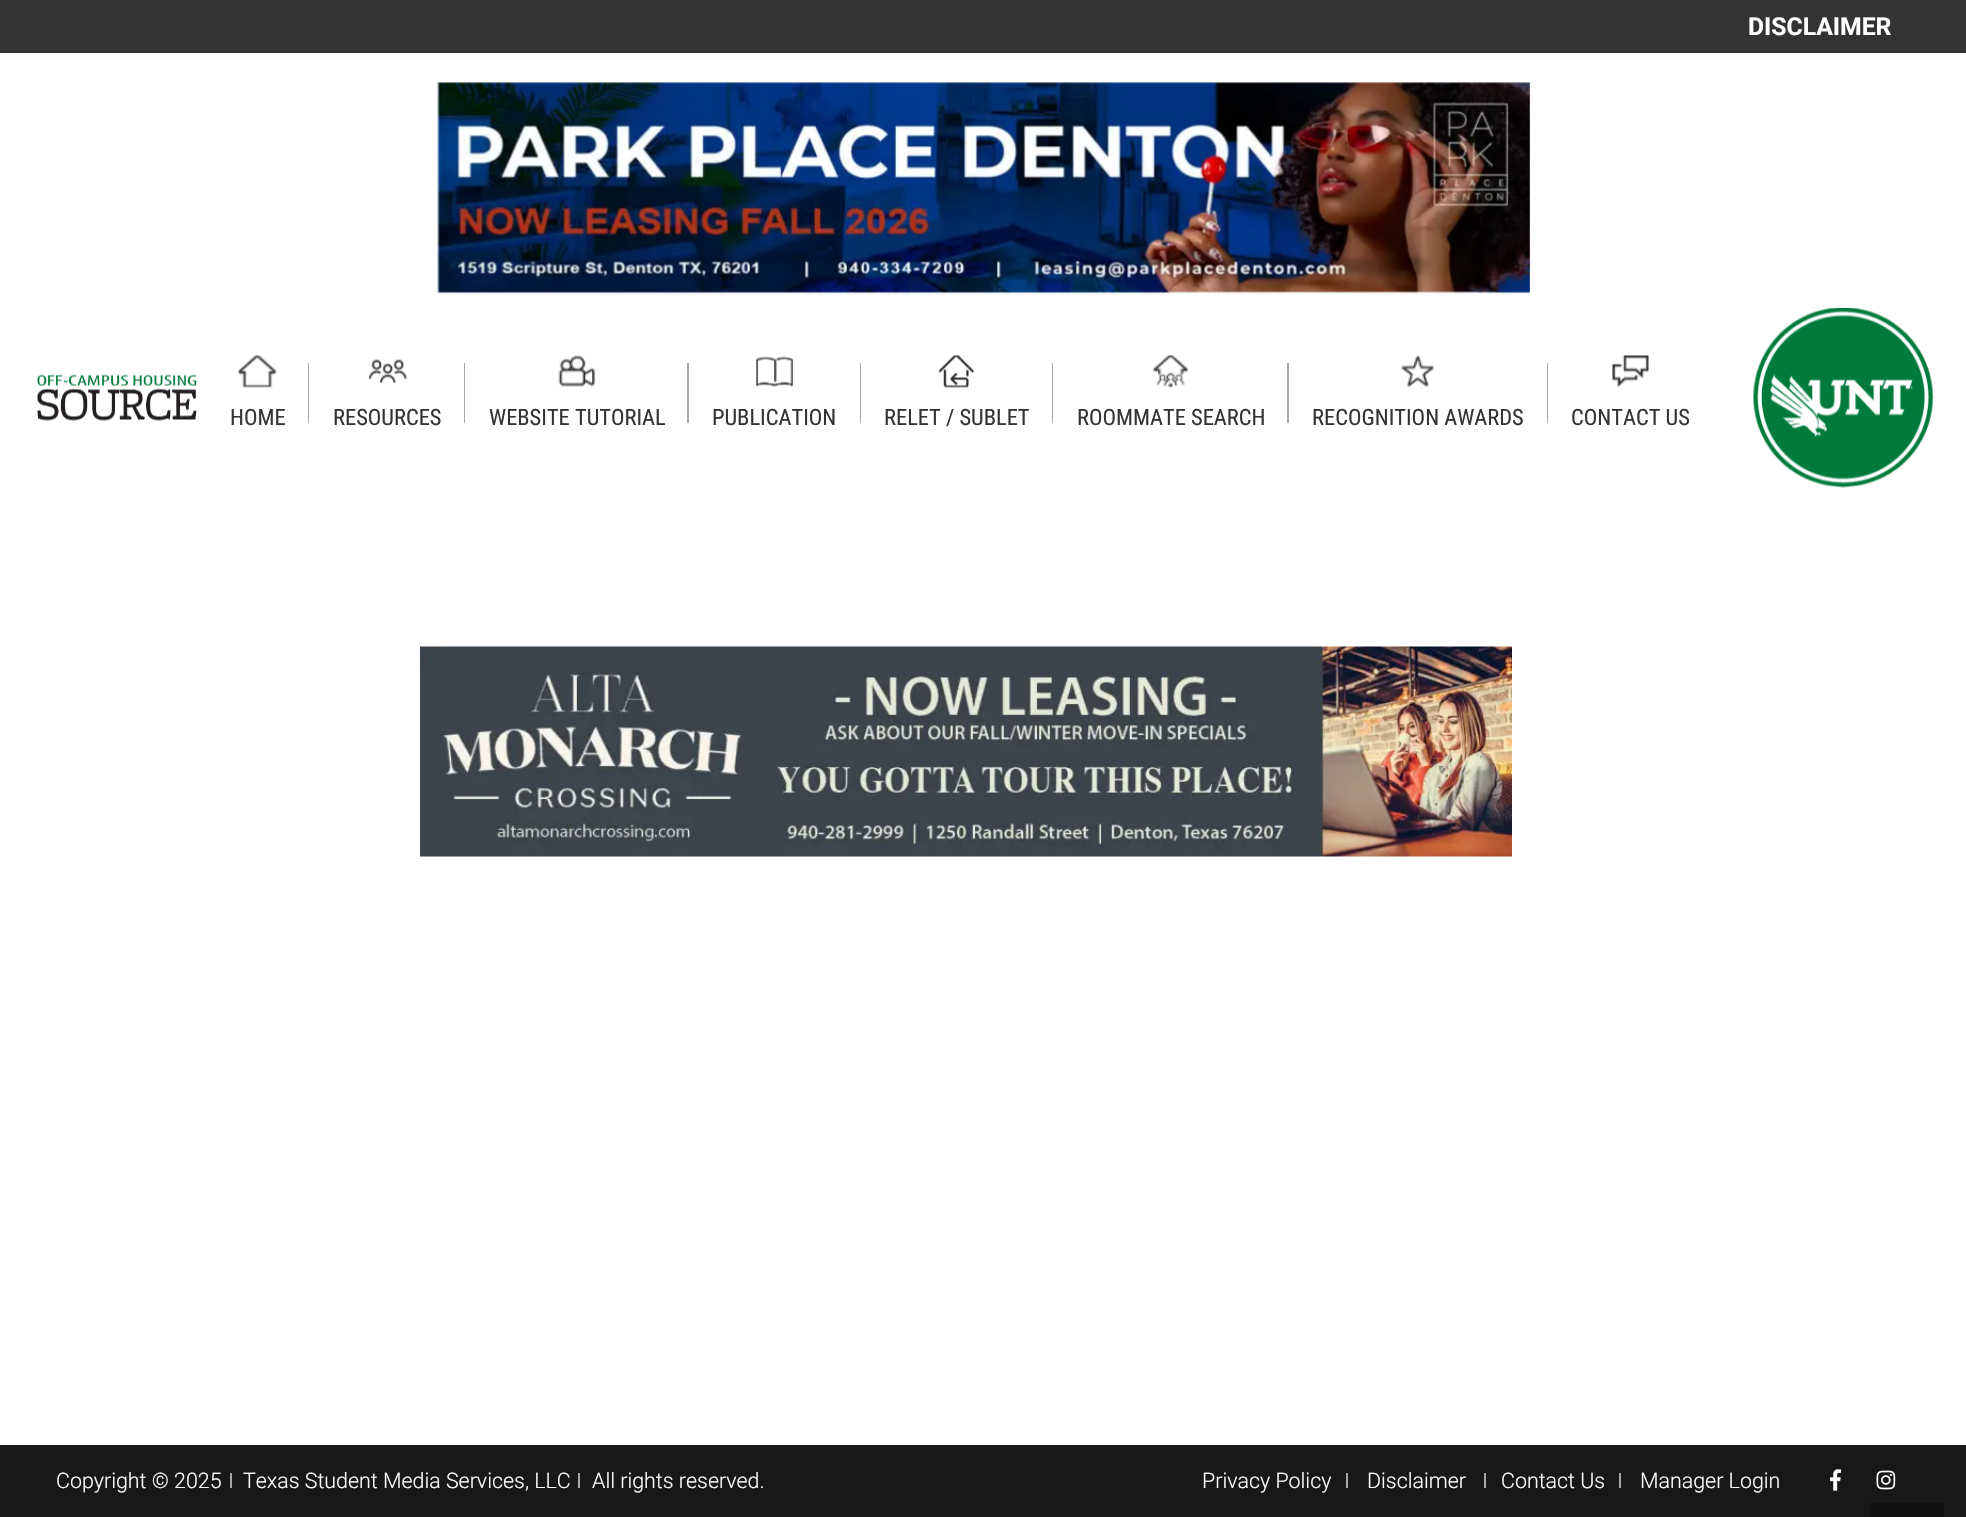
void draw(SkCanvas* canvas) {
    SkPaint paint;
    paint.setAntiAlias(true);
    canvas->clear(0xFFFFFFFF);
    paint.setColor(0xFF333333);
    canvas->drawRect(SkRect::MakeXYWH(0, 0, 1966, 53), paint);
    SkFont font1(fontMgr->matchFamilyStyle("Roboto", SkFontStyle::Bold()), 24.75f);
    font1.setSubpixel(true);
    paint.setColor(0xFFFFFFFF);
    canvas->drawString("DISCLAIMER", 1748, 35, font1, paint);
    canvas->drawImageRect(SkImages::DeferredFromEncodedData(SkData::MakeFromFileName("img1.png")), SkRect::MakeXYWH(437, 82, 1093, 212), SkSamplingOptions());
    canvas->drawImageRect(SkImages::DeferredFromEncodedData(SkData::MakeFromFileName("img2.png")), SkRect::MakeXYWH(37, 374, 160, 47), SkSamplingOptions());
    canvas->drawImageRect(SkImages::DeferredFromEncodedData(SkData::MakeFromFileName("img3.png")), SkRect::MakeXYWH(238, 355, 39, 33), SkSamplingOptions());
    paint.setColor(0xFFA7A7A7);
    canvas->drawRect(SkRect::MakeXYWH(308, 363, 1, 60), paint);
    SkFont font2(fontMgr->matchFamilyStyle("Roboto Condensed", SkFontStyle::Normal()), 22.5f);
    font2.setSubpixel(true);
    paint.setColor(0xFF333333);
    canvas->drawString("HOME", 230, 425, font2, paint);
    canvas->drawImageRect(SkImages::DeferredFromEncodedData(SkData::MakeFromFileName("img4.png")), SkRect::MakeXYWH(369, 359, 38, 24), SkSamplingOptions());
    paint.setColor(0xFFA7A7A7);
    canvas->drawRect(SkRect::MakeXYWH(464, 363, 1, 60), paint);
    paint.setColor(0xFF333333);
    canvas->drawString("RESOURCES", 333, 425, font2, paint);
    canvas->drawImageRect(SkImages::DeferredFromEncodedData(SkData::MakeFromFileName("img5.png")), SkRect::MakeXYWH(558, 355, 38, 32), SkSamplingOptions());
    paint.setColor(0xFFA7A7A7);
    canvas->drawRect(SkRect::MakeXYWH(687, 363, 2, 60), paint);
    paint.setColor(0xFF333333);
    canvas->drawString("WEBSITE TUTORIAL", 489, 425, font2, paint);
    canvas->drawImageRect(SkImages::DeferredFromEncodedData(SkData::MakeFromFileName("img6.png")), SkRect::MakeXYWH(756, 356, 38, 31), SkSamplingOptions());
    paint.setColor(0xFFA7A7A7);
    canvas->drawRect(SkRect::MakeXYWH(860, 363, 1, 60), paint);
    paint.setColor(0xFF333333);
    canvas->drawString("PUBLICATION", 712, 425, font2, paint);
    canvas->drawImageRect(SkImages::DeferredFromEncodedData(SkData::MakeFromFileName("img7.png")), SkRect::MakeXYWH(939, 355, 35, 33), SkSamplingOptions());
    paint.setColor(0xFFA7A7A7);
    canvas->drawRect(SkRect::MakeXYWH(1052, 363, 1, 60), paint);
    paint.setColor(0xFF333333);
    canvas->drawString("RELET / SUBLET", 884, 425, font2, paint);
    canvas->drawImageRect(SkImages::DeferredFromEncodedData(SkData::MakeFromFileName("img8.png")), SkRect::MakeXYWH(1152, 355, 36, 33), SkSamplingOptions());
    paint.setColor(0xFFA7A7A7);
    canvas->drawRect(SkRect::MakeXYWH(1287, 363, 2, 60), paint);
    paint.setColor(0xFF333333);
    canvas->drawString("ROOMMATE SEARCH", 1077, 425, font2, paint);
    canvas->drawImageRect(SkImages::DeferredFromEncodedData(SkData::MakeFromFileName("img9.png")), SkRect::MakeXYWH(1401, 355, 33, 33), SkSamplingOptions());
    paint.setColor(0xFFA7A7A7);
    canvas->drawRect(SkRect::MakeXYWH(1547, 363, 1, 60), paint);
    paint.setColor(0xFF333333);
    canvas->drawString("RECOGNITION AWARDS", 1312, 425, font2, paint);
    canvas->drawImageRect(SkImages::DeferredFromEncodedData(SkData::MakeFromFileName("img10.png")), SkRect::MakeXYWH(1612, 355, 37, 33), SkSamplingOptions());
    canvas->drawString("CONTACT US", 1571, 425, font2, paint);
    canvas->drawImageRect(SkImages::DeferredFromEncodedData(SkData::MakeFromFileName("img11.png")), SkRect::MakeXYWH(1753, 308, 181, 180), SkSamplingOptions());
    canvas->drawImageRect(SkImages::DeferredFromEncodedData(SkData::MakeFromFileName("img12.png")), SkRect::MakeXYWH(420, 646, 1092, 211), SkSamplingOptions());
    paint.setColor(0xFF181818);
    canvas->drawRect(SkRect::MakeXYWH(0, 1445, 1966, 72), paint);
    SkFont font3(fontMgr->matchFamilyStyle("Roboto", SkFontStyle(300, SkFontStyle::kNormal_Width, SkFontStyle::kUpright_Slant)), 21.4f);
    font3.setSubpixel(true);
    paint.setColor(0xFFFFFFFF);
    canvas->drawString("Copyright © 2025", 56, 1488, font3, paint);
    paint.setColor(0xFFA7A7A7);
    canvas->drawRect(SkRect::MakeXYWH(230, 1473, 2, 15), paint);
    paint.setColor(0xFFFFFFFF);
    canvas->drawString("Texas Student Media Services, LLC", 243, 1488, font3, paint);
    paint.setColor(0xFFA7A7A7);
    canvas->drawRect(SkRect::MakeXYWH(578, 1473, 2, 15), paint);
    paint.setColor(0xFFFFFFFF);
    canvas->drawString("All rights reserved.", 592, 1488, font3, paint);
    canvas->drawString("Privacy Policy", 1202, 1488, font3, paint);
    paint.setColor(0xFFA7A7A7);
    canvas->drawRect(SkRect::MakeXYWH(1346, 1473, 2, 15), paint);
    paint.setColor(0xFFFFFFFF);
    canvas->drawString("Disclaimer", 1367, 1488, font3, paint);
    paint.setColor(0xFFA7A7A7);
    canvas->drawRect(SkRect::MakeXYWH(1484, 1473, 2, 15), paint);
    paint.setColor(0xFFFFFFFF);
    canvas->drawString("Contact Us", 1501, 1488, font3, paint);
    paint.setColor(0xFFA7A7A7);
    canvas->drawRect(SkRect::MakeXYWH(1619, 1473, 2, 15), paint);
    paint.setColor(0xFFFFFFFF);
    canvas->drawString("Manager Login", 1640, 1488, font3, paint);
    canvas->drawImageRect(SkImages::DeferredFromEncodedData(SkData::MakeFromFileName("img13.png")), SkRect::MakeXYWH(1830, 1469, 12, 22), SkSamplingOptions());
    canvas->drawImageRect(SkImages::DeferredFromEncodedData(SkData::MakeFromFileName("img14.png")), SkRect::MakeXYWH(1876, 1470, 20, 20), SkSamplingOptions());
    paint.setColor(0xFF111111);
    canvas->drawRect(SkRect::MakeXYWH(1869, 1503, 75, 14), paint);
}
